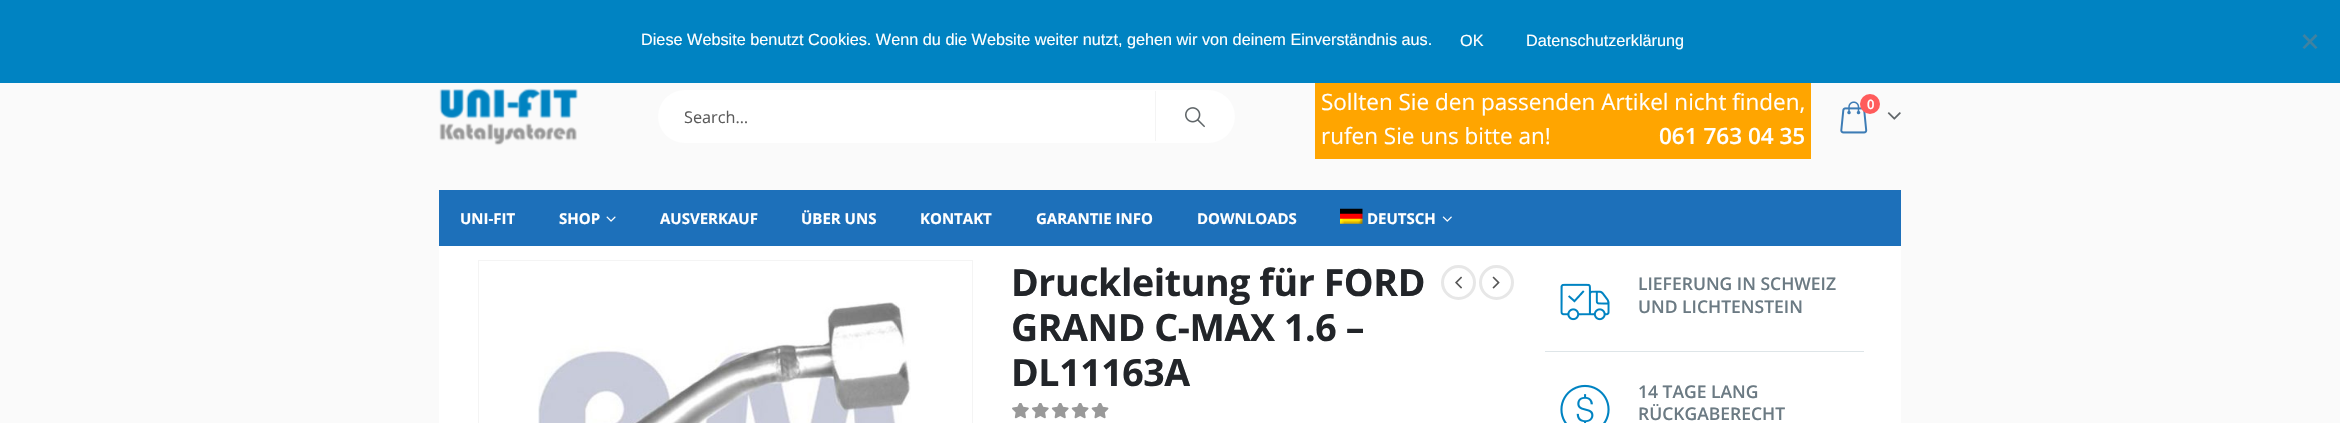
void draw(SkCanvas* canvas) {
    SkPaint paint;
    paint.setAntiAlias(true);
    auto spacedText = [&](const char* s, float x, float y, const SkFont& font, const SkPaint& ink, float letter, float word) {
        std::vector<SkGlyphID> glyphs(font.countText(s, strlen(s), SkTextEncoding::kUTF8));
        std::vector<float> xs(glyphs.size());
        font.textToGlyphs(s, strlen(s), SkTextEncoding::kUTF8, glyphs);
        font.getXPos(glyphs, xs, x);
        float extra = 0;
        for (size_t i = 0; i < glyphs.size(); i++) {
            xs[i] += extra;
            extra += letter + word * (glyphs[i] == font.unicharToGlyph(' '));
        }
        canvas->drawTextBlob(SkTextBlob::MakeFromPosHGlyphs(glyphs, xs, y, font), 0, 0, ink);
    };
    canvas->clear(0xFFFAFAFA);
    paint.setColor(0xFF0083C2);
    canvas->drawRect(SkRect::MakeXYWH(0, 0, 2340, 83), paint);
    SkFont font1(fontMgr->matchFamilyStyle("Liberation Sans", SkFontStyle::Normal()), 16.25f);
    font1.setSubpixel(true);
    paint.setColor(0xFFFFFFFF);
    canvas->drawString("Diese Website benutzt Cookies. Wenn du die Website weiter nutzt, gehen wir von deinem Einverständnis aus.", 641, 45, font1, paint);
    canvas->drawString("OK", 1460, 46, font1, paint);
    canvas->drawString("Datenschutzerklärung", 1526, 46, font1, paint);
    paint.setColor(0xFF4082A1);
    canvas->drawPath(SkPathBuilder().moveTo(2315.5f, 34).lineTo(2317.5f, 36).lineTo(2304.5f, 49).lineTo(2302.5f, 47.5f).close().detach(), paint);
    canvas->drawPath(SkPathBuilder().moveTo(2302.5f, 36).lineTo(2304.5f, 34).lineTo(2317.5f, 47.5f).lineTo(2315.5f, 49).close().detach(), paint);
    canvas->drawImageRect(SkImages::DeferredFromEncodedData(SkData::MakeFromFileName("img1.png")), SkRect::MakeXYWH(439, 88, 139, 58), SkSamplingOptions());
    paint.setColor(0xFFFFFFFF);
    canvas->drawRoundRect(SkRect::MakeXYWH(658, 90, 577, 53), 26.5f, 26.5f, paint);
    paint.setColor(0xFFF4F4F4);
    canvas->drawRect(SkRect::MakeXYWH(1155, 91, 1, 50), paint);
    SkFont font2(fontMgr->matchFamilyStyle("Open Sans", SkFontStyle::Normal()), 16.25f);
    font2.setSubpixel(true);
    paint.setColor(0xFF5B5B5B);
    canvas->drawString("Search…", 684, 123, font2, paint);
    canvas->drawImageRect(SkImages::DeferredFromEncodedData(SkData::MakeFromFileName("img2.png")), SkRect::MakeXYWH(1185, 107, 20, 21), SkSamplingOptions());
    paint.setColor(0xFFFFA500);
    canvas->drawRect(SkRect::MakeXYWH(1315, 83, 496, 76), paint);
    SkFont font3(fontMgr->matchFamilyStyle("Open Sans", SkFontStyle::Normal()), 22.5f);
    font3.setSubpixel(true);
    paint.setColor(0xFFFFFFFF);
    canvas->drawString("Sollten Sie den passenden Artikel nicht finden,", 1321, 110, font3, paint);
    canvas->drawString("rufen Sie uns bitte an!", 1321, 144, font3, paint);
    SkFont font4(fontMgr->matchFamilyStyle("Open Sans", SkFontStyle(600, SkFontStyle::kNormal_Width, SkFontStyle::kUpright_Slant)), 22.5f);
    font4.setSubpixel(true);
    canvas->drawString("061 763 04 35", 1659, 144, font4, paint);
    canvas->drawImageRect(SkImages::DeferredFromEncodedData(SkData::MakeFromFileName("img3.png")), SkRect::MakeXYWH(1840, 101, 28, 33), SkSamplingOptions());
    paint.setColor(0xFFFF5B5B);
    canvas->drawCircle(1870, 104, 10, paint);
    SkFont font5(fontMgr->matchFamilyStyle("Open Sans", SkFontStyle(600, SkFontStyle::kNormal_Width, SkFontStyle::kUpright_Slant)), 13);
    font5.setSubpixel(true);
    paint.setColor(0xFFFFFFFF);
    canvas->drawString("0", 1867, 109, font5, paint);
    canvas->drawImageRect(SkImages::DeferredFromEncodedData(SkData::MakeFromFileName("img4.png")), SkRect::MakeXYWH(1887, 112, 14, 8), SkSamplingOptions());
    paint.setColor(0xFF1D70BA);
    canvas->drawRect(SkRect::MakeXYWH(439, 190, 1462, 56), paint);
    SkFont font6(fontMgr->matchFamilyStyle("Open Sans", SkFontStyle::Bold()), 15);
    font6.setSubpixel(true);
    paint.setColor(0xFFFFFFFF);
    canvas->drawString("UNI-FIT", 460, 224, font6, paint);
    canvas->drawString("SHOP", 559, 224, font6, paint);
    canvas->drawImageRect(SkImages::DeferredFromEncodedData(SkData::MakeFromFileName("img5.png")), SkRect::MakeXYWH(606, 216, 10, 6), SkSamplingOptions());
    canvas->drawString("AUSVERKAUF", 660, 224, font6, paint);
    canvas->drawString("ÜBER UNS", 801, 224, font6, paint);
    canvas->drawString("KONTAKT", 920, 224, font6, paint);
    canvas->drawString("GARANTIE INFO", 1036, 224, font6, paint);
    canvas->drawString("DOWNLOADS", 1197, 224, font6, paint);
    canvas->drawImageRect(SkImages::DeferredFromEncodedData(SkData::MakeFromFileName("img6.png")), SkRect::MakeXYWH(1340, 208, 23, 16), SkSamplingOptions());
    canvas->drawString("DEUTSCH", 1367, 224, font6, paint);
    canvas->drawImageRect(SkImages::DeferredFromEncodedData(SkData::MakeFromFileName("img7.png")), SkRect::MakeXYWH(1442, 216, 10, 6), SkSamplingOptions());
    canvas->drawRect(SkRect::MakeXYWH(439, 246, 1462, 177), paint);
    paint.setStyle(SkPaint::kStroke_Style);
    paint.setStrokeWidth(1);
    paint.setColor(0xFFF4F4F4);
    canvas->drawRect(SkRect::MakeXYWH(478.5f, 260.5f, 494, 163), paint);
    canvas->drawImageRect(SkImages::DeferredFromEncodedData(SkData::MakeFromFileName("img8.png")), SkRect::MakeXYWH(538, 302, 373, 121), SkSamplingOptions());
    SkFont font7(fontMgr->matchFamilyStyle("Open Sans", SkFontStyle::Bold()), 37.5f);
    font7.setSubpixel(true);
    paint.setStyle(SkPaint::kFill_Style);
    paint.setColor(0xFF222529);
    spacedText("Druckleitung für FORD", 1011, 296, font7, paint, -0.4f, 0);
    spacedText("GRAND C-MAX 1.6 –", 1011, 341, font7, paint, -0.4f, 0);
    spacedText("DL11163A", 1011, 386, font7, paint, -0.4f, 0);
    paint.setStyle(SkPaint::kStroke_Style);
    paint.setStrokeWidth(3);
    paint.setColor(0xFFE7E7E7);
    canvas->drawCircle(1458.5f, 282.5f, 16, paint);
    canvas->drawImageRect(SkImages::DeferredFromEncodedData(SkData::MakeFromFileName("img9.png")), SkRect::MakeXYWH(1455, 276, 7, 13), SkSamplingOptions());
    canvas->drawCircle(1496.5f, 282.5f, 16, paint);
    canvas->drawImageRect(SkImages::DeferredFromEncodedData(SkData::MakeFromFileName("img10.png")), SkRect::MakeXYWH(1492, 276, 8, 13), SkSamplingOptions());
    canvas->drawImageRect(SkImages::DeferredFromEncodedData(SkData::MakeFromFileName("img11.png")), SkRect::MakeXYWH(1012, 403, 97, 16), SkSamplingOptions());
    canvas->drawImageRect(SkImages::DeferredFromEncodedData(SkData::MakeFromFileName("img12.png")), SkRect::MakeXYWH(1560, 283, 50, 38), SkSamplingOptions());
    SkFont font8(fontMgr->matchFamilyStyle("Open Sans", SkFontStyle(600, SkFontStyle::kNormal_Width, SkFontStyle::kUpright_Slant)), 17.5f);
    font8.setSubpixel(true);
    paint.setStyle(SkPaint::kFill_Style);
    paint.setColor(0xFF6B7A83);
    canvas->drawString("LIEFERUNG IN SCHWEIZ", 1638, 290, font8, paint);
    canvas->drawString("UND LICHTENSTEIN", 1638, 313, font8, paint);
    paint.setColor(0xFFDEE5E8);
    canvas->drawRect(SkRect::MakeXYWH(1545, 351, 319, 1), paint);
    canvas->drawImageRect(SkImages::DeferredFromEncodedData(SkData::MakeFromFileName("img13.png")), SkRect::MakeXYWH(1560, 384, 50, 39), SkSamplingOptions());
    paint.setColor(0xFF6B7A83);
    canvas->drawString("14 TAGE LANG", 1638, 398, font8, paint);
    canvas->drawString("RÜCKGABERECHT", 1638, 420, font8, paint);
}
